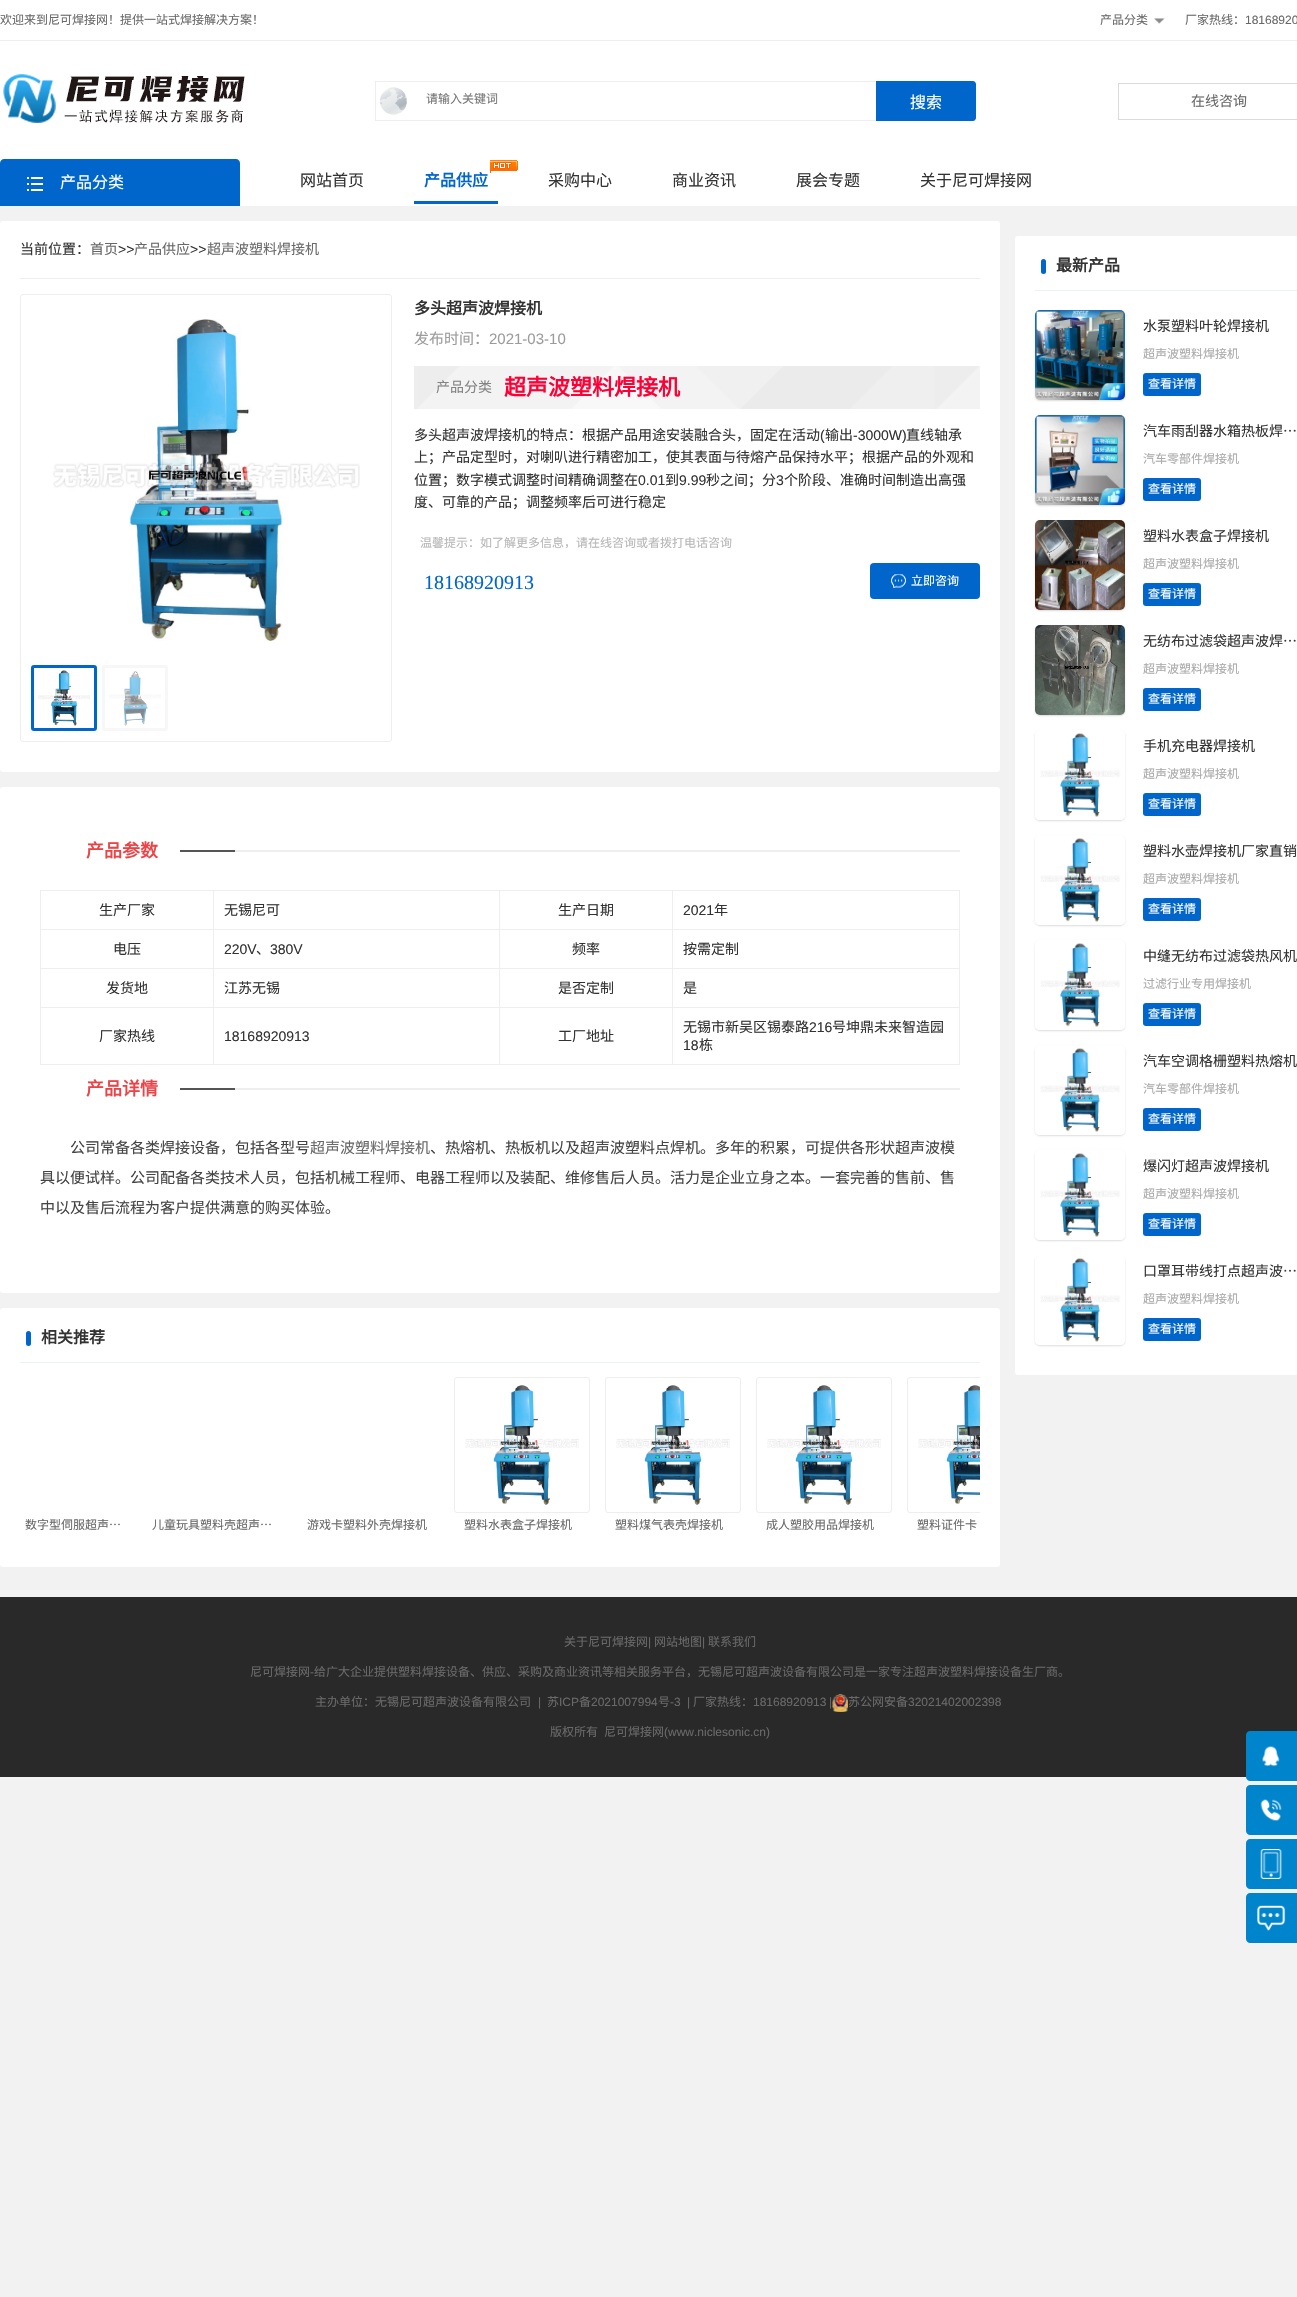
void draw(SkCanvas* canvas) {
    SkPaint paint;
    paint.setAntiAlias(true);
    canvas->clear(0xFFF2F2F2);
    paint.setColor(0xFFFFFFFF);
    canvas->drawRect(SkRect::MakeXYWH(0, 0, 1297, 206), paint);
    paint.setColor(0xFFEEEEEE);
    canvas->drawRect(SkRect::MakeXYWH(0, 40, 1297, 1), paint);
    SkFont font1(fontMgr->matchFamilyStyle("Noto Sans CJK SC", SkFontStyle::Normal()), 12);
    font1.setSubpixel(true);
    paint.setColor(0xFF696969);
    canvas->drawString("欢迎来到尼可焊接网！提供一站式焊接解决方案！", 0, 24, font1, paint);
    canvas->drawImageRect(SkImages::DeferredFromEncodedData(SkData::MakeFromFileName("img1.png")), SkRect::MakeXYWH(1154, 18, 11, 6), SkSamplingOptions());
    canvas->drawString("产品分类", 1100, 24, font1, paint);
    canvas->drawString("厂家热线：", 1185, 24, font1, paint);
    SkFont font2(fontMgr->matchFamilyStyle("Liberation Sans", SkFontStyle::Normal()), 12);
    font2.setSubpixel(true);
    canvas->drawString("18168920", 1245, 24, font2, paint);
    canvas->drawImageRect(SkImages::DeferredFromEncodedData(SkData::MakeFromFileName("img2.png")), SkRect::MakeXYWH(3, 74, 242, 49), SkSamplingOptions());
    canvas->drawImageRect(SkImages::DeferredFromEncodedData(SkData::MakeFromFileName("img3.png")), SkRect::MakeXYWH(380, 87, 27, 28), SkSamplingOptions());
    paint.setColor(0xFFEEEEEE);
    canvas->drawRect(SkRect::MakeXYWH(375, 81, 501, 1), paint);
    canvas->drawRect(SkRect::MakeXYWH(375, 120, 501, 1), paint);
    canvas->drawRect(SkRect::MakeXYWH(375, 81, 1, 40), paint);
    paint.setColor(0xFF757575);
    canvas->drawString("请输入关键词", 426, 103, font1, paint);
    paint.setColor(0xFF0066CC);
    canvas->drawPath(SkPathBuilder().moveTo(876, 81).lineTo(973, 81).cubicTo(974.5f, 81, 976, 82.5f, 976, 84).lineTo(976, 118).cubicTo(976, 119.5f, 974.5f, 121, 973, 121).lineTo(876, 121).close().detach(), paint);
    SkFont font3(fontMgr->matchFamilyStyle("Noto Sans CJK SC", SkFontStyle::Normal()), 16);
    font3.setSubpixel(true);
    paint.setColor(0xFFFFFFFF);
    canvas->drawString("搜索", 910, 108, font3, paint);
    paint.setStyle(SkPaint::kStroke_Style);
    paint.setStrokeWidth(1);
    paint.setColor(0xFFDBDBDB);
    canvas->drawRect(SkRect::MakeXYWH(1118.5f, 83.5f, 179, 36), paint);
    SkFont font4(fontMgr->matchFamilyStyle("Noto Sans CJK SC", SkFontStyle::Normal()), 14);
    font4.setSubpixel(true);
    paint.setStyle(SkPaint::kFill_Style);
    paint.setColor(0xFF696969);
    canvas->drawString("在线咨询", 1191, 106, font4, paint);
    paint.setColor(0xFF0066CC);
    canvas->drawPath(SkPathBuilder().moveTo(4, 159).lineTo(236, 159).cubicTo(238, 159, 240, 161, 240, 163).lineTo(240, 206).lineTo(0, 206).lineTo(0, 163).cubicTo(0, 161, 2, 159, 4, 159).close().detach(), paint);
    canvas->drawImageRect(SkImages::DeferredFromEncodedData(SkData::MakeFromFileName("img4.png")), SkRect::MakeXYWH(27, 177, 16, 14), SkSamplingOptions());
    paint.setColor(0xFFFFFFFF);
    canvas->drawString("产品分类", 60, 188, font3, paint);
    paint.setColor(0xFF333333);
    canvas->drawString("网站首页", 300, 186, font3, paint);
    canvas->drawImageRect(SkImages::DeferredFromEncodedData(SkData::MakeFromFileName("img5.png")), SkRect::MakeXYWH(490, 160, 28, 13), SkSamplingOptions());
    SkFont font5(fontMgr->matchFamilyStyle("Noto Sans CJK SC", SkFontStyle::Bold()), 16);
    font5.setSubpixel(true);
    paint.setColor(0xFF0066CC);
    canvas->drawString("产品供应", 424, 186, font5, paint);
    canvas->drawRect(SkRect::MakeXYWH(414, 201, 84, 3), paint);
    paint.setColor(0xFF333333);
    canvas->drawString("采购中心", 548, 186, font3, paint);
    canvas->drawString("商业资讯", 672, 186, font3, paint);
    canvas->drawString("展会专题", 796, 186, font3, paint);
    canvas->drawString("关于尼可焊接网", 920, 186, font3, paint);
    paint.setColor(0xFFFFFFFF);
    canvas->drawRoundRect(SkRect::MakeXYWH(0, 221, 1000, 551), 3, 3, paint);
    paint.setColor(0xFF333333);
    canvas->drawString("当前位置：", 20, 254, font4, paint);
    paint.setColor(0xFF696969);
    canvas->drawString("首页", 90, 254, font4, paint);
    SkFont font6(fontMgr->matchFamilyStyle("Liberation Sans", SkFontStyle::Normal()), 14);
    font6.setSubpixel(true);
    paint.setColor(0xFF333333);
    canvas->drawString(">>", 118, 254, font6, paint);
    paint.setColor(0xFF696969);
    canvas->drawString("产品供应", 134, 254, font4, paint);
    paint.setColor(0xFF333333);
    canvas->drawString(">>", 190, 254, font6, paint);
    paint.setColor(0xFF696969);
    canvas->drawString("超声波塑料焊接机", 207, 254, font4, paint);
    paint.setColor(0xFFEEEEEE);
    canvas->drawRect(SkRect::MakeXYWH(20, 278, 960, 1), paint);
    paint.setStyle(SkPaint::kStroke_Style);
    canvas->drawRoundRect(SkRect::MakeXYWH(20.5f, 294.5f, 371, 447), 2.5f, 2.5f, paint);
    canvas->drawImageRect(SkImages::DeferredFromEncodedData(SkData::MakeFromFileName("img6.png")), SkRect::MakeXYWH(53, 319, 307, 322), SkSamplingOptions());
    paint.setStrokeWidth(3);
    paint.setColor(0xFF0066CC);
    canvas->drawRoundRect(SkRect::MakeXYWH(32.5f, 666.5f, 63, 63), 1.5f, 1.5f, paint);
    canvas->drawImageRect(SkImages::DeferredFromEncodedData(SkData::MakeFromFileName("img7.png")), SkRect::MakeXYWH(38, 670, 52, 56), SkSamplingOptions());
    paint.setColor(0xFFF7F7F7);
    canvas->drawRoundRect(SkRect::MakeXYWH(103.5f, 666.5f, 63, 63), 1.5f, 1.5f, paint);
    canvas->drawImageRect(SkImages::DeferredFromEncodedData(SkData::MakeFromFileName("img8.png")), SkRect::MakeXYWH(109, 671, 52, 55), SkSamplingOptions());
    paint.setStyle(SkPaint::kFill_Style);
    paint.setColor(0xFF333333);
    canvas->drawString("多头超声波焊接机", 414, 314, font5, paint);
    SkFont font7(fontMgr->matchFamilyStyle("Noto Sans CJK SC", SkFontStyle::Normal()), 15);
    font7.setSubpixel(true);
    paint.setColor(0xFF9C9C9C);
    canvas->drawString("发布时间：", 414, 344, font7, paint);
    SkFont font8(fontMgr->matchFamilyStyle("Liberation Sans", SkFontStyle::Normal()), 15);
    font8.setSubpixel(true);
    canvas->drawString("2021-03-10", 489, 344, font8, paint);
    paint.setColor(0xFFEEEEEE);
    canvas->drawRect(SkRect::MakeXYWH(414, 366, 4, 43), paint);
    canvas->drawImageRect(SkImages::DeferredFromEncodedData(SkData::MakeFromFileName("img9.png")), SkRect::MakeXYWH(418, 366, 562, 43), SkSamplingOptions());
    paint.setColor(0xFF838383);
    canvas->drawString("产品分类", 436, 392, font4, paint);
    SkFont font9(fontMgr->matchFamilyStyle("Noto Sans CJK SC", SkFontStyle::Bold()), 22);
    font9.setSubpixel(true);
    paint.setColor(0xFFFF0036);
    canvas->drawString("超声波塑料焊接机", 504, 395, font9, paint);
    paint.setColor(0xFF333333);
    canvas->drawString("多头超声波焊接机的特点：根据产品用途安装融合头，固定在活动", 414, 440, font4, paint);
    canvas->drawString("(", 820, 440, font6, paint);
    canvas->drawString("输出", 825, 440, font4, paint);
    canvas->drawString("-3000W)", 853, 440, font6, paint);
    canvas->drawString("直线轴承", 906, 440, font4, paint);
    canvas->drawString("上；产品定型时，对喇叭进行精密加工，使其表面与待熔产品保持水平；根据产品的外观和", 414, 462, font4, paint);
    canvas->drawString("位置；数字模式调整时间精确调整在", 414, 485, font4, paint);
    canvas->drawString("0.01", 638, 485, font6, paint);
    canvas->drawString("到", 665, 485, font4, paint);
    canvas->drawString("9.99", 679, 485, font6, paint);
    canvas->drawString("秒之间；分", 706, 485, font4, paint);
    canvas->drawString("3", 776, 485, font6, paint);
    canvas->drawString("个阶段、准确时间制造出高强", 784, 485, font4, paint);
    canvas->drawString("度、可靠的产品；调整频率后可进行稳定", 414, 507, font4, paint);
    paint.setColor(0xFFB7B7B7);
    canvas->drawString("温馨提示：如了解更多信息，请在线咨询或者拨打电话咨询", 420, 547, font1, paint);
    SkFont font10(fontMgr->matchFamilyStyle("Liberation Serif", SkFontStyle::Normal()), 20);
    font10.setSubpixel(true);
    paint.setColor(0xFF0066CC);
    canvas->drawString("18168920913", 424, 589, font10, paint);
    canvas->drawRoundRect(SkRect::MakeXYWH(870, 563, 110, 36), 4, 4, paint);
    canvas->drawImageRect(SkImages::DeferredFromEncodedData(SkData::MakeFromFileName("img10.png")), SkRect::MakeXYWH(891, 574, 15, 14), SkSamplingOptions());
    paint.setColor(0xFFFFFFFF);
    canvas->drawString("立即咨询", 911, 585, font1, paint);
    canvas->drawRoundRect(SkRect::MakeXYWH(0, 787, 1000, 506), 3, 3, paint);
    SkFont font11(fontMgr->matchFamilyStyle("Noto Sans CJK SC", SkFontStyle::Bold()), 18);
    font11.setSubpixel(true);
    paint.setColor(0xFFEC4346);
    canvas->drawString("产品参数", 86, 857, font11, paint);
    paint.setColor(0xFF555555);
    canvas->drawRect(SkRect::MakeXYWH(180, 850, 55, 2), paint);
    paint.setColor(0xFFEEEEEE);
    canvas->drawRect(SkRect::MakeXYWH(235, 850, 725, 2), paint);
    canvas->drawRect(SkRect::MakeXYWH(672, 890, 288, 1), paint);
    canvas->drawRect(SkRect::MakeXYWH(672, 929, 288, 1), paint);
    canvas->drawRect(SkRect::MakeXYWH(672, 968, 288, 1), paint);
    canvas->drawRect(SkRect::MakeXYWH(672, 1007, 288, 1), paint);
    canvas->drawRect(SkRect::MakeXYWH(959, 1007, 1, 58), paint);
    canvas->drawRect(SkRect::MakeXYWH(672, 1064, 288, 1), paint);
    canvas->drawRect(SkRect::MakeXYWH(672, 1007, 1, 58), paint);
    canvas->drawRect(SkRect::MakeXYWH(499, 1007, 174, 1), paint);
    canvas->drawRect(SkRect::MakeXYWH(672, 968, 1, 40), paint);
    canvas->drawRect(SkRect::MakeXYWH(499, 968, 174, 1), paint);
    canvas->drawRect(SkRect::MakeXYWH(672, 929, 1, 40), paint);
    canvas->drawRect(SkRect::MakeXYWH(499, 929, 174, 1), paint);
    canvas->drawRect(SkRect::MakeXYWH(672, 890, 1, 40), paint);
    canvas->drawRect(SkRect::MakeXYWH(499, 890, 174, 1), paint);
    canvas->drawRect(SkRect::MakeXYWH(499, 1064, 174, 1), paint);
    canvas->drawRect(SkRect::MakeXYWH(499, 1007, 1, 58), paint);
    canvas->drawRect(SkRect::MakeXYWH(213, 1007, 287, 1), paint);
    canvas->drawRect(SkRect::MakeXYWH(499, 968, 1, 40), paint);
    canvas->drawRect(SkRect::MakeXYWH(213, 968, 287, 1), paint);
    canvas->drawRect(SkRect::MakeXYWH(499, 929, 1, 40), paint);
    canvas->drawRect(SkRect::MakeXYWH(213, 929, 287, 1), paint);
    canvas->drawRect(SkRect::MakeXYWH(499, 890, 1, 40), paint);
    canvas->drawRect(SkRect::MakeXYWH(213, 890, 287, 1), paint);
    canvas->drawRect(SkRect::MakeXYWH(213, 1064, 287, 1), paint);
    canvas->drawRect(SkRect::MakeXYWH(213, 1007, 1, 58), paint);
    canvas->drawRect(SkRect::MakeXYWH(40, 1007, 174, 1), paint);
    canvas->drawRect(SkRect::MakeXYWH(213, 968, 1, 40), paint);
    canvas->drawRect(SkRect::MakeXYWH(40, 968, 174, 1), paint);
    canvas->drawRect(SkRect::MakeXYWH(213, 929, 1, 40), paint);
    canvas->drawRect(SkRect::MakeXYWH(40, 929, 174, 1), paint);
    canvas->drawRect(SkRect::MakeXYWH(213, 890, 1, 40), paint);
    canvas->drawRect(SkRect::MakeXYWH(40, 890, 174, 1), paint);
    canvas->drawRect(SkRect::MakeXYWH(40, 1064, 174, 1), paint);
    canvas->drawRect(SkRect::MakeXYWH(40, 1007, 1, 58), paint);
    canvas->drawRect(SkRect::MakeXYWH(40, 968, 1, 40), paint);
    canvas->drawRect(SkRect::MakeXYWH(40, 929, 1, 40), paint);
    canvas->drawRect(SkRect::MakeXYWH(40, 890, 1, 40), paint);
    paint.setColor(0xFF333333);
    canvas->drawString("生产厂家", 99, 915, font4, paint);
    canvas->drawString("无锡尼可", 224, 915, font4, paint);
    canvas->drawString("生产日期", 558, 915, font4, paint);
    paint.setColor(0xFFEEEEEE);
    canvas->drawRect(SkRect::MakeXYWH(959, 968, 1, 40), paint);
    canvas->drawRect(SkRect::MakeXYWH(959, 929, 1, 40), paint);
    canvas->drawRect(SkRect::MakeXYWH(959, 890, 1, 40), paint);
    paint.setColor(0xFF333333);
    canvas->drawString("2021", 683, 915, font6, paint);
    canvas->drawString("年", 714, 915, font4, paint);
    canvas->drawString("电压", 113, 954, font4, paint);
    canvas->drawString("220V", 224, 954, font6, paint);
    canvas->drawString("、", 256, 954, font4, paint);
    canvas->drawString("380V", 270, 954, font6, paint);
    canvas->drawString("频率", 572, 954, font4, paint);
    canvas->drawString("按需定制", 683, 954, font4, paint);
    canvas->drawString("发货地", 106, 993, font4, paint);
    canvas->drawString("江苏无锡", 224, 993, font4, paint);
    canvas->drawString("是否定制", 558, 993, font4, paint);
    canvas->drawString("是", 683, 993, font4, paint);
    canvas->drawString("厂家热线", 99, 1041, font4, paint);
    canvas->drawString("18168920913", 224, 1041, font6, paint);
    canvas->drawString("工厂地址", 558, 1041, font4, paint);
    canvas->drawString("无锡市新吴区锡泰路", 683, 1032, font4, paint);
    canvas->drawString("216", 809, 1032, font6, paint);
    canvas->drawString("号坤鼎未来智造园", 832, 1032, font4, paint);
    canvas->drawString("18", 683, 1050, font6, paint);
    canvas->drawString("栋", 699, 1050, font4, paint);
    paint.setColor(0xFFEC4346);
    canvas->drawString("产品详情", 86, 1095, font11, paint);
    paint.setColor(0xFF555555);
    canvas->drawRect(SkRect::MakeXYWH(180, 1088, 55, 2), paint);
    paint.setColor(0xFFEEEEEE);
    canvas->drawRect(SkRect::MakeXYWH(235, 1088, 725, 2), paint);
    paint.setColor(0xFF444444);
    canvas->drawString("公司常备各类焊接设备，包括各型号", 70, 1153, font7, paint);
    paint.setColor(0xFF696969);
    canvas->drawString("超声波塑料焊接机", 310, 1153, font7, paint);
    paint.setColor(0xFF444444);
    canvas->drawString("、热熔机、热板机以及超声波塑料点焊机。多年的积累，可提供各形状超声波模", 430, 1153, font7, paint);
    canvas->drawString("具以便试样。公司配备各类技术人员，包括机械工程师、电器工程师以及装配、维修售后人员。活力是企业立身之本。一套完善的售前、售", 40, 1183, font7, paint);
    canvas->drawString("中以及售后流程为客户提供满意的购买体验。", 40, 1213, font7, paint);
    paint.setColor(0xFFFFFFFF);
    canvas->drawRoundRect(SkRect::MakeXYWH(0, 1308, 1000, 259), 3, 3, paint);
    paint.setColor(0x1A2C72FF);
    canvas->drawRect(SkRect::MakeXYWH(20, 1362, 960, 1), paint);
    paint.setColor(0xFF0066CC);
    canvas->drawRoundRect(SkRect::MakeXYWH(26, 1331, 5, 15), 2.5f, 2.5f, paint);
    paint.setColor(0xFF333333);
    canvas->drawString("相关推荐", 41, 1343, font5, paint);
    paint.setColor(0xFF696969);
    canvas->drawString("数字型伺服超声…", 25, 1529, font1, paint);
    canvas->drawString("儿童玩具塑料壳超声…", 152, 1529, font1, paint);
    canvas->drawString("游戏卡塑料外壳焊接机", 307, 1529, font1, paint);
    paint.setStyle(SkPaint::kStroke_Style);
    paint.setStrokeWidth(1);
    paint.setColor(0xFFEEEEEE);
    canvas->drawRoundRect(SkRect::MakeXYWH(454.5f, 1377.5f, 135, 135), 2.5f, 2.5f, paint);
    canvas->drawImageRect(SkImages::DeferredFromEncodedData(SkData::MakeFromFileName("img11.png")), SkRect::MakeXYWH(465, 1385, 114, 120), SkSamplingOptions());
    paint.setStyle(SkPaint::kFill_Style);
    paint.setColor(0xFF696969);
    canvas->drawString("塑料水表盒子焊接机", 464, 1529, font1, paint);
    paint.setStyle(SkPaint::kStroke_Style);
    paint.setColor(0xFFEEEEEE);
    canvas->drawRoundRect(SkRect::MakeXYWH(605.5f, 1377.5f, 135, 135), 2.5f, 2.5f, paint);
    canvas->drawImageRect(SkImages::DeferredFromEncodedData(SkData::MakeFromFileName("img12.png")), SkRect::MakeXYWH(616, 1385, 114, 120), SkSamplingOptions());
    paint.setStyle(SkPaint::kFill_Style);
    paint.setColor(0xFF696969);
    canvas->drawString("塑料煤气表壳焊接机", 615, 1529, font1, paint);
    paint.setStyle(SkPaint::kStroke_Style);
    paint.setColor(0xFFEEEEEE);
    canvas->drawRoundRect(SkRect::MakeXYWH(756.5f, 1377.5f, 135, 135), 2.5f, 2.5f, paint);
    canvas->drawImageRect(SkImages::DeferredFromEncodedData(SkData::MakeFromFileName("img13.png")), SkRect::MakeXYWH(767, 1385, 114, 120), SkSamplingOptions());
    paint.setStyle(SkPaint::kFill_Style);
    paint.setColor(0xFF696969);
    canvas->drawString("成人塑胶用品焊接机", 766, 1529, font1, paint);
    canvas->save();
    canvas->clipRect(SkRect::MakeXYWH(907, 1377, 73, 160));
    paint.setStyle(SkPaint::kStroke_Style);
    paint.setColor(0xFFEEEEEE);
    canvas->drawRoundRect(SkRect::MakeXYWH(907.5f, 1377.5f, 135, 135), 2.5f, 2.5f, paint);
    canvas->restore();
    canvas->drawImageRect(SkImages::DeferredFromEncodedData(SkData::MakeFromFileName("img14.png")), SkRect::MakeXYWH(918, 1385, 62, 120), SkSamplingOptions());
    paint.setStyle(SkPaint::kFill_Style);
    paint.setColor(0xFF696969);
    canvas->drawString("塑料证件卡", 917, 1529, font1, paint);
    paint.setColor(0xFFFFFFFF);
    canvas->drawRoundRect(SkRect::MakeXYWH(1015, 236, 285, 1139), 3, 3, paint);
    paint.setColor(0x1A2C72FF);
    canvas->drawRect(SkRect::MakeXYWH(1035, 290, 262, 1), paint);
    paint.setColor(0xFF0066CC);
    canvas->drawRoundRect(SkRect::MakeXYWH(1041, 259, 5, 15), 2.5f, 2.5f, paint);
    paint.setColor(0xFF333333);
    canvas->drawString("最新产品", 1056, 271, font5, paint);
    paint.setColor(0x30464646);
    paint.setMaskFilter(SkMaskFilter::MakeBlur(kNormal_SkBlurStyle, 1));
    canvas->drawRoundRect(SkRect::MakeXYWH(1035, 311, 90, 90), 5, 5, paint);
    paint.setMaskFilter(nullptr);
    canvas->drawImageRect(SkImages::DeferredFromEncodedData(SkData::MakeFromFileName("img15.png")), SkRect::MakeXYWH(1035, 310, 90, 90), SkSamplingOptions());
    paint.setColor(0xFF333333);
    canvas->drawString("水泵塑料叶轮焊接机", 1143, 331, font4, paint);
    paint.setColor(0xFFAAAAAA);
    canvas->drawString("超声波塑料焊接机", 1143, 358, font1, paint);
    paint.setColor(0xFF0066CC);
    canvas->drawRoundRect(SkRect::MakeXYWH(1143, 373, 58, 23), 3, 3, paint);
    paint.setColor(0xFFFFFFFF);
    canvas->drawString("查看详情", 1148, 388, font1, paint);
    paint.setColor(0x30464646);
    paint.setMaskFilter(SkMaskFilter::MakeBlur(kNormal_SkBlurStyle, 1));
    canvas->drawRoundRect(SkRect::MakeXYWH(1035, 416, 90, 90), 5, 5, paint);
    paint.setMaskFilter(nullptr);
    canvas->drawImageRect(SkImages::DeferredFromEncodedData(SkData::MakeFromFileName("img16.png")), SkRect::MakeXYWH(1035, 415, 90, 90), SkSamplingOptions());
    paint.setColor(0xFF333333);
    canvas->drawString("汽车雨刮器水箱热板焊…", 1143, 436, font4, paint);
    paint.setColor(0xFFAAAAAA);
    canvas->drawString("汽车零部件焊接机", 1143, 463, font1, paint);
    paint.setColor(0xFF0066CC);
    canvas->drawRoundRect(SkRect::MakeXYWH(1143, 478, 58, 23), 3, 3, paint);
    paint.setColor(0xFFFFFFFF);
    canvas->drawString("查看详情", 1148, 493, font1, paint);
    paint.setColor(0x30464646);
    paint.setMaskFilter(SkMaskFilter::MakeBlur(kNormal_SkBlurStyle, 1));
    canvas->drawRoundRect(SkRect::MakeXYWH(1035, 521, 90, 90), 5, 5, paint);
    paint.setMaskFilter(nullptr);
    canvas->drawImageRect(SkImages::DeferredFromEncodedData(SkData::MakeFromFileName("img17.png")), SkRect::MakeXYWH(1035, 520, 90, 90), SkSamplingOptions());
    paint.setColor(0xFF333333);
    canvas->drawString("塑料水表盒子焊接机", 1143, 541, font4, paint);
    paint.setColor(0xFFAAAAAA);
    canvas->drawString("超声波塑料焊接机", 1143, 568, font1, paint);
    paint.setColor(0xFF0066CC);
    canvas->drawRoundRect(SkRect::MakeXYWH(1143, 583, 58, 23), 3, 3, paint);
    paint.setColor(0xFFFFFFFF);
    canvas->drawString("查看详情", 1148, 598, font1, paint);
    paint.setColor(0x30464646);
    paint.setMaskFilter(SkMaskFilter::MakeBlur(kNormal_SkBlurStyle, 1));
    canvas->drawRoundRect(SkRect::MakeXYWH(1035, 626, 90, 90), 5, 5, paint);
    paint.setMaskFilter(nullptr);
    canvas->drawImageRect(SkImages::DeferredFromEncodedData(SkData::MakeFromFileName("img18.png")), SkRect::MakeXYWH(1035, 625, 90, 90), SkSamplingOptions());
    paint.setColor(0xFF333333);
    canvas->drawString("无纺布过滤袋超声波焊…", 1143, 646, font4, paint);
    paint.setColor(0xFFAAAAAA);
    canvas->drawString("超声波塑料焊接机", 1143, 673, font1, paint);
    paint.setColor(0xFF0066CC);
    canvas->drawRoundRect(SkRect::MakeXYWH(1143, 688, 58, 23), 3, 3, paint);
    paint.setColor(0xFFFFFFFF);
    canvas->drawString("查看详情", 1148, 703, font1, paint);
    canvas->save();
    canvas->clipPath(SkPathBuilder(SkPathFillType::kEvenOdd).moveTo(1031, 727).lineTo(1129, 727).lineTo(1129, 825).lineTo(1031, 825).close().moveTo(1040, 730).lineTo(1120, 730).cubicTo(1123, 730, 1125, 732, 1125, 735).lineTo(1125, 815).cubicTo(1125, 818, 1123, 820, 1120, 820).lineTo(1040, 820).cubicTo(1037, 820, 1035, 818, 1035, 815).lineTo(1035, 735).cubicTo(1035, 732, 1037, 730, 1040, 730).close().detach(), true);
    paint.setColor(0x30464646);
    paint.setMaskFilter(SkMaskFilter::MakeBlur(kNormal_SkBlurStyle, 1));
    canvas->drawRoundRect(SkRect::MakeXYWH(1035, 731, 90, 90), 5, 5, paint);
    paint.setMaskFilter(nullptr);
    canvas->restore();
    canvas->drawImageRect(SkImages::DeferredFromEncodedData(SkData::MakeFromFileName("img19.png")), SkRect::MakeXYWH(1035, 733, 90, 87), SkSamplingOptions());
    paint.setColor(0xFF333333);
    canvas->drawString("手机充电器焊接机", 1143, 751, font4, paint);
    paint.setColor(0xFFAAAAAA);
    canvas->drawString("超声波塑料焊接机", 1143, 778, font1, paint);
    paint.setColor(0xFF0066CC);
    canvas->drawRoundRect(SkRect::MakeXYWH(1143, 793, 58, 23), 3, 3, paint);
    paint.setColor(0xFFFFFFFF);
    canvas->drawString("查看详情", 1148, 808, font1, paint);
    canvas->save();
    canvas->clipPath(SkPathBuilder(SkPathFillType::kEvenOdd).moveTo(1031, 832).lineTo(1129, 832).lineTo(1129, 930).lineTo(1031, 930).close().moveTo(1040, 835).lineTo(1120, 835).cubicTo(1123, 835, 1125, 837, 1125, 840).lineTo(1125, 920).cubicTo(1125, 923, 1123, 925, 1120, 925).lineTo(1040, 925).cubicTo(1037, 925, 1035, 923, 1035, 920).lineTo(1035, 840).cubicTo(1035, 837, 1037, 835, 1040, 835).close().detach(), true);
    paint.setColor(0x30464646);
    paint.setMaskFilter(SkMaskFilter::MakeBlur(kNormal_SkBlurStyle, 1));
    canvas->drawRoundRect(SkRect::MakeXYWH(1035, 836, 90, 90), 5, 5, paint);
    paint.setMaskFilter(nullptr);
    canvas->restore();
    canvas->drawImageRect(SkImages::DeferredFromEncodedData(SkData::MakeFromFileName("img20.png")), SkRect::MakeXYWH(1035, 838, 90, 87), SkSamplingOptions());
    paint.setColor(0xFF333333);
    canvas->drawString("塑料水壶焊接机厂家直销", 1143, 856, font4, paint);
    paint.setColor(0xFFAAAAAA);
    canvas->drawString("超声波塑料焊接机", 1143, 883, font1, paint);
    paint.setColor(0xFF0066CC);
    canvas->drawRoundRect(SkRect::MakeXYWH(1143, 898, 58, 23), 3, 3, paint);
    paint.setColor(0xFFFFFFFF);
    canvas->drawString("查看详情", 1148, 913, font1, paint);
    canvas->save();
    canvas->clipPath(SkPathBuilder(SkPathFillType::kEvenOdd).moveTo(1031, 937).lineTo(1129, 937).lineTo(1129, 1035).lineTo(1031, 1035).close().moveTo(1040, 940).lineTo(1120, 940).cubicTo(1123, 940, 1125, 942, 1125, 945).lineTo(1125, 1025).cubicTo(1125, 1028, 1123, 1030, 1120, 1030).lineTo(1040, 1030).cubicTo(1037, 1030, 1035, 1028, 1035, 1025).lineTo(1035, 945).cubicTo(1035, 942, 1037, 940, 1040, 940).close().detach(), true);
    paint.setColor(0x30464646);
    paint.setMaskFilter(SkMaskFilter::MakeBlur(kNormal_SkBlurStyle, 1));
    canvas->drawRoundRect(SkRect::MakeXYWH(1035, 941, 90, 90), 5, 5, paint);
    paint.setMaskFilter(nullptr);
    canvas->restore();
    canvas->drawImageRect(SkImages::DeferredFromEncodedData(SkData::MakeFromFileName("img19.png")), SkRect::MakeXYWH(1035, 943, 90, 87), SkSamplingOptions());
    paint.setColor(0xFF333333);
    canvas->drawString("中缝无纺布过滤袋热风机", 1143, 961, font4, paint);
    paint.setColor(0xFFAAAAAA);
    canvas->drawString("过滤行业专用焊接机", 1143, 988, font1, paint);
    paint.setColor(0xFF0066CC);
    canvas->drawRoundRect(SkRect::MakeXYWH(1143, 1003, 58, 23), 3, 3, paint);
    paint.setColor(0xFFFFFFFF);
    canvas->drawString("查看详情", 1148, 1018, font1, paint);
    canvas->save();
    canvas->clipPath(SkPathBuilder(SkPathFillType::kEvenOdd).moveTo(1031, 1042).lineTo(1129, 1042).lineTo(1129, 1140).lineTo(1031, 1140).close().moveTo(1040, 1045).lineTo(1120, 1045).cubicTo(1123, 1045, 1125, 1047, 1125, 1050).lineTo(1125, 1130).cubicTo(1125, 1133, 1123, 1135, 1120, 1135).lineTo(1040, 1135).cubicTo(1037, 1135, 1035, 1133, 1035, 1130).lineTo(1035, 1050).cubicTo(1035, 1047, 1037, 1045, 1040, 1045).close().detach(), true);
    paint.setColor(0x30464646);
    paint.setMaskFilter(SkMaskFilter::MakeBlur(kNormal_SkBlurStyle, 1));
    canvas->drawRoundRect(SkRect::MakeXYWH(1035, 1046, 90, 90), 5, 5, paint);
    paint.setMaskFilter(nullptr);
    canvas->restore();
    canvas->drawImageRect(SkImages::DeferredFromEncodedData(SkData::MakeFromFileName("img20.png")), SkRect::MakeXYWH(1035, 1048, 90, 87), SkSamplingOptions());
    paint.setColor(0xFF333333);
    canvas->drawString("汽车空调格栅塑料热熔机", 1143, 1066, font4, paint);
    paint.setColor(0xFFAAAAAA);
    canvas->drawString("汽车零部件焊接机", 1143, 1093, font1, paint);
    paint.setColor(0xFF0066CC);
    canvas->drawRoundRect(SkRect::MakeXYWH(1143, 1108, 58, 23), 3, 3, paint);
    paint.setColor(0xFFFFFFFF);
    canvas->drawString("查看详情", 1148, 1123, font1, paint);
    canvas->save();
    canvas->clipPath(SkPathBuilder(SkPathFillType::kEvenOdd).moveTo(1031, 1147).lineTo(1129, 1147).lineTo(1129, 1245).lineTo(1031, 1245).close().moveTo(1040, 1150).lineTo(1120, 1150).cubicTo(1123, 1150, 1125, 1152, 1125, 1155).lineTo(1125, 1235).cubicTo(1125, 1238, 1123, 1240, 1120, 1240).lineTo(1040, 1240).cubicTo(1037, 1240, 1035, 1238, 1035, 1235).lineTo(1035, 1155).cubicTo(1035, 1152, 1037, 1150, 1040, 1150).close().detach(), true);
    paint.setColor(0x30464646);
    paint.setMaskFilter(SkMaskFilter::MakeBlur(kNormal_SkBlurStyle, 1));
    canvas->drawRoundRect(SkRect::MakeXYWH(1035, 1151, 90, 90), 5, 5, paint);
    paint.setMaskFilter(nullptr);
    canvas->restore();
    canvas->drawImageRect(SkImages::DeferredFromEncodedData(SkData::MakeFromFileName("img20.png")), SkRect::MakeXYWH(1035, 1153, 90, 87), SkSamplingOptions());
    paint.setColor(0xFF333333);
    canvas->drawString("爆闪灯超声波焊接机", 1143, 1171, font4, paint);
    paint.setColor(0xFFAAAAAA);
    canvas->drawString("超声波塑料焊接机", 1143, 1198, font1, paint);
    paint.setColor(0xFF0066CC);
    canvas->drawRoundRect(SkRect::MakeXYWH(1143, 1213, 58, 23), 3, 3, paint);
    paint.setColor(0xFFFFFFFF);
    canvas->drawString("查看详情", 1148, 1228, font1, paint);
    canvas->save();
    canvas->clipPath(SkPathBuilder(SkPathFillType::kEvenOdd).moveTo(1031, 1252).lineTo(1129, 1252).lineTo(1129, 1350).lineTo(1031, 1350).close().moveTo(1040, 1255).lineTo(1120, 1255).cubicTo(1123, 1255, 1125, 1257, 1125, 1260).lineTo(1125, 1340).cubicTo(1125, 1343, 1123, 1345, 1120, 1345).lineTo(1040, 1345).cubicTo(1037, 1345, 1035, 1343, 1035, 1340).lineTo(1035, 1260).cubicTo(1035, 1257, 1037, 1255, 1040, 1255).close().detach(), true);
    paint.setColor(0x30464646);
    paint.setMaskFilter(SkMaskFilter::MakeBlur(kNormal_SkBlurStyle, 1));
    canvas->drawRoundRect(SkRect::MakeXYWH(1035, 1256, 90, 90), 5, 5, paint);
    paint.setMaskFilter(nullptr);
    canvas->restore();
    canvas->drawImageRect(SkImages::DeferredFromEncodedData(SkData::MakeFromFileName("img19.png")), SkRect::MakeXYWH(1035, 1258, 90, 87), SkSamplingOptions());
    paint.setColor(0xFF333333);
    canvas->drawString("口罩耳带线打点超声波…", 1143, 1276, font4, paint);
    paint.setColor(0xFFAAAAAA);
    canvas->drawString("超声波塑料焊接机", 1143, 1303, font1, paint);
    paint.setColor(0xFF0066CC);
    canvas->drawRoundRect(SkRect::MakeXYWH(1143, 1318, 58, 23), 3, 3, paint);
    paint.setColor(0xFFFFFFFF);
    canvas->drawString("查看详情", 1148, 1333, font1, paint);
    paint.setColor(0xFF292929);
    canvas->drawRect(SkRect::MakeXYWH(0, 1597, 1297, 180), paint);
    paint.setColor(0xFF696969);
    canvas->drawString("关于尼可焊接网", 564, 1646, font1, paint);
    canvas->drawString("|", 648, 1646, font2, paint);
    canvas->drawString("网站地图", 654, 1646, font1, paint);
    canvas->drawString("|", 702, 1646, font2, paint);
    canvas->drawString("联系我们", 708, 1646, font1, paint);
    canvas->drawString("尼可焊接网", 250, 1676, font1, paint);
    canvas->drawString("-", 310, 1676, font2, paint);
    canvas->drawString("给广大企业提供塑料焊接设备、供应、采购及商业资讯等相关服务平台，无锡尼可超声波设备有限公司是一家专注超声波塑料焊接设备生厂商。", 314, 1676, font1, paint);
    canvas->drawString("主办单位：无锡尼可超声波设备有限公司", 315, 1706, font1, paint);
    canvas->drawString("|", 538, 1706, font2, paint);
    canvas->drawString("苏", 547, 1706, font1, paint);
    canvas->drawString("ICP", 559, 1706, font2, paint);
    canvas->drawString("备", 579, 1706, font1, paint);
    canvas->drawString("2021007994", 591, 1706, font2, paint);
    canvas->drawString("号", 658, 1706, font1, paint);
    canvas->drawString("-3", 670, 1706, font2, paint);
    canvas->drawString("|", 687, 1706, font2, paint);
    canvas->drawString("厂家热线：", 693, 1706, font1, paint);
    canvas->drawString("18168920913", 753, 1706, font2, paint);
    canvas->drawString("|", 829, 1706, font2, paint);
    canvas->drawImageRect(SkImages::DeferredFromEncodedData(SkData::MakeFromFileName("img21.png")), SkRect::MakeXYWH(832, 1694, 16, 18), SkSamplingOptions());
    canvas->drawString("苏公网安备", 848, 1706, font1, paint);
    canvas->drawString("32021402002398", 908, 1706, font2, paint);
    canvas->drawString("版权所有", 550, 1736, font1, paint);
    canvas->drawString("尼可焊接网", 604, 1736, font1, paint);
    canvas->drawString("(www.niclesonic.cn)", 664, 1736, font2, paint);
    paint.setColor(0xFF0085CD);
    canvas->drawPath(SkPathBuilder().moveTo(1250, 1731).lineTo(1297, 1731).lineTo(1297, 1781).lineTo(1250, 1781).cubicTo(1248, 1781, 1246, 1779, 1246, 1777).lineTo(1246, 1735).cubicTo(1246, 1733, 1248, 1731, 1250, 1731).close().detach(), paint);
    canvas->drawImageRect(SkImages::DeferredFromEncodedData(SkData::MakeFromFileName("img22.png")), SkRect::MakeXYWH(1262, 1746, 18, 21), SkSamplingOptions());
    canvas->drawPath(SkPathBuilder().moveTo(1250, 1785).lineTo(1297, 1785).lineTo(1297, 1835).lineTo(1250, 1835).cubicTo(1248, 1835, 1246, 1833, 1246, 1831).lineTo(1246, 1789).cubicTo(1246, 1787, 1248, 1785, 1250, 1785).close().detach(), paint);
    canvas->drawImageRect(SkImages::DeferredFromEncodedData(SkData::MakeFromFileName("img23.png")), SkRect::MakeXYWH(1260, 1799, 22, 22), SkSamplingOptions());
    canvas->drawPath(SkPathBuilder().moveTo(1250, 1839).lineTo(1297, 1839).lineTo(1297, 1889).lineTo(1250, 1889).cubicTo(1248, 1889, 1246, 1887, 1246, 1885).lineTo(1246, 1843).cubicTo(1246, 1841, 1248, 1839, 1250, 1839).close().detach(), paint);
    canvas->drawImageRect(SkImages::DeferredFromEncodedData(SkData::MakeFromFileName("img24.png")), SkRect::MakeXYWH(1260, 1849, 22, 30), SkSamplingOptions());
    canvas->drawPath(SkPathBuilder().moveTo(1250, 1893).lineTo(1297, 1893).lineTo(1297, 1943).lineTo(1250, 1943).cubicTo(1248, 1943, 1246, 1941, 1246, 1939).lineTo(1246, 1897).cubicTo(1246, 1895, 1248, 1893, 1250, 1893).close().detach(), paint);
    canvas->drawImageRect(SkImages::DeferredFromEncodedData(SkData::MakeFromFileName("img25.png")), SkRect::MakeXYWH(1257, 1905, 29, 26), SkSamplingOptions());
}
